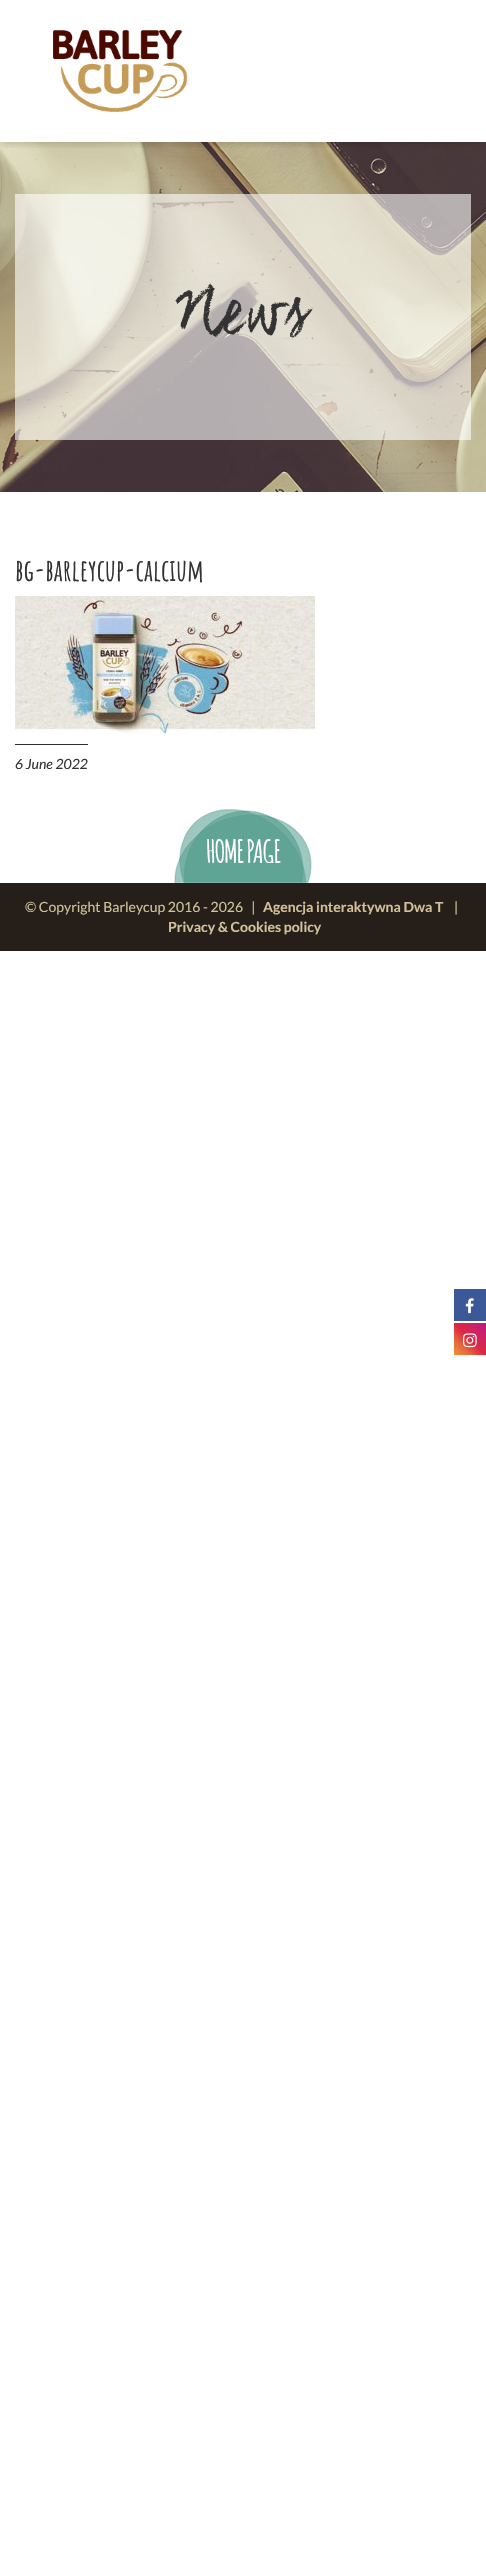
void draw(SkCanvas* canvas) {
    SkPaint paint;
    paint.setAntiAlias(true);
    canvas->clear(0xFFFFFFFF);
    canvas->drawImageRect(SkImages::DeferredFromEncodedData(SkData::MakeFromFileName("img2.png")), SkRect::MakeXYWH(0, 142, 486, 350), SkSamplingOptions());
    canvas->save();
    canvas->clipRect(SkRect::MakeXYWH(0, 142, 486, 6));
    paint.setColor(0x33000000);
    paint.setMaskFilter(SkMaskFilter::MakeBlur(kNormal_SkBlurStyle, 4));
    canvas->drawRect(SkRect::MakeXYWH(1, 1, 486, 142), paint);
    paint.setMaskFilter(nullptr);
    canvas->restore();
    canvas->drawImageRect(SkImages::DeferredFromEncodedData(SkData::MakeFromFileName("img1.png")), SkRect::MakeXYWH(53, 30, 135, 82), SkSamplingOptions());
    paint.setColor(0x99FFFFFF);
    canvas->drawRect(SkRect::MakeXYWH(15, 194, 456, 246), paint);
    SkFont font1(fontMgr->matchFamilyStyle("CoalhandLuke", SkFontStyle::Normal()), 62);
    font1.setSubpixel(true);
    paint.setColor(0xFF333333);
    canvas->drawString("News", 178, 332, font1, paint);
    SkFont font2(fontMgr->matchFamilyStyle("Amatic SC", SkFontStyle::Bold()), 30);
    font2.setSubpixel(true);
    canvas->drawString("bg-barleycup-calcium", 15, 581, font2, paint);
    canvas->drawImageRect(SkImages::DeferredFromEncodedData(SkData::MakeFromFileName("img3.png")), SkRect::MakeXYWH(15, 596, 300, 138), SkSamplingOptions());
    paint.setColor(0xFF2F2F2F);
    canvas->drawRect(SkRect::MakeXYWH(15, 744, 73, 1), paint);
    SkFont font3(fontMgr->matchFamilyStyle("Lato", SkFontStyle::Italic()), 14);
    font3.setSubpixel(true);
    paint.setColor(0xFF333333);
    canvas->drawString("6 June 2022", 15, 769, font3, paint);
    canvas->drawImageRect(SkImages::DeferredFromEncodedData(SkData::MakeFromFileName("img4.png")), SkRect::MakeXYWH(174, 809, 138, 74), SkSamplingOptions());
    paint.setColor(0xFF261F19);
    canvas->drawRect(SkRect::MakeXYWH(0, 883, 486, 68), paint);
    SkFont font4(fontMgr->matchFamilyStyle("Lato", SkFontStyle::Normal()), 14);
    font4.setSubpixel(true);
    paint.setColor(0xFFD2C19A);
    canvas->drawString("© Copyright Barleycup 2016 - 2026   |", 25, 912, font4, paint);
    SkFont font5(fontMgr->matchFamilyStyle("Lato", SkFontStyle::Bold()), 14);
    font5.setSubpixel(true);
    canvas->drawString("Agencja interaktywna Dwa T", 263, 912, font5, paint);
    canvas->drawString("|", 454, 912, font4, paint);
    canvas->drawString("Privacy & Cookies policy", 168, 932, font5, paint);
    paint.setColor(0xFF3B5998);
    canvas->drawRect(SkRect::MakeXYWH(454, 1289, 32, 32), paint);
    canvas->drawImageRect(SkImages::DeferredFromEncodedData(SkData::MakeFromFileName("img5.png")), SkRect::MakeXYWH(465, 1298, 9, 16), SkSamplingOptions());
    {
        const SkColor colors[] = {0xFFF09433, 0xFFE6683C, 0xFFDC2743, 0xFFCC2366, 0xFFBC1888};
        const float stops[] = {0, 0.25f, 0.5f, 0.75f, 1};
        const SkPoint ends[] = {{454, 1355}, {486, 1323}};
        paint.setShader(SkGradientShader::MakeLinear(ends, colors, stops, 5, SkTileMode::kClamp));
        paint.setAlpha(255);
    }
    canvas->drawRect(SkRect::MakeXYWH(454, 1323, 32, 32), paint);
    canvas->drawImageRect(SkImages::DeferredFromEncodedData(SkData::MakeFromFileName("img6.png")), SkRect::MakeXYWH(463, 1333, 14, 15), SkSamplingOptions());
}
